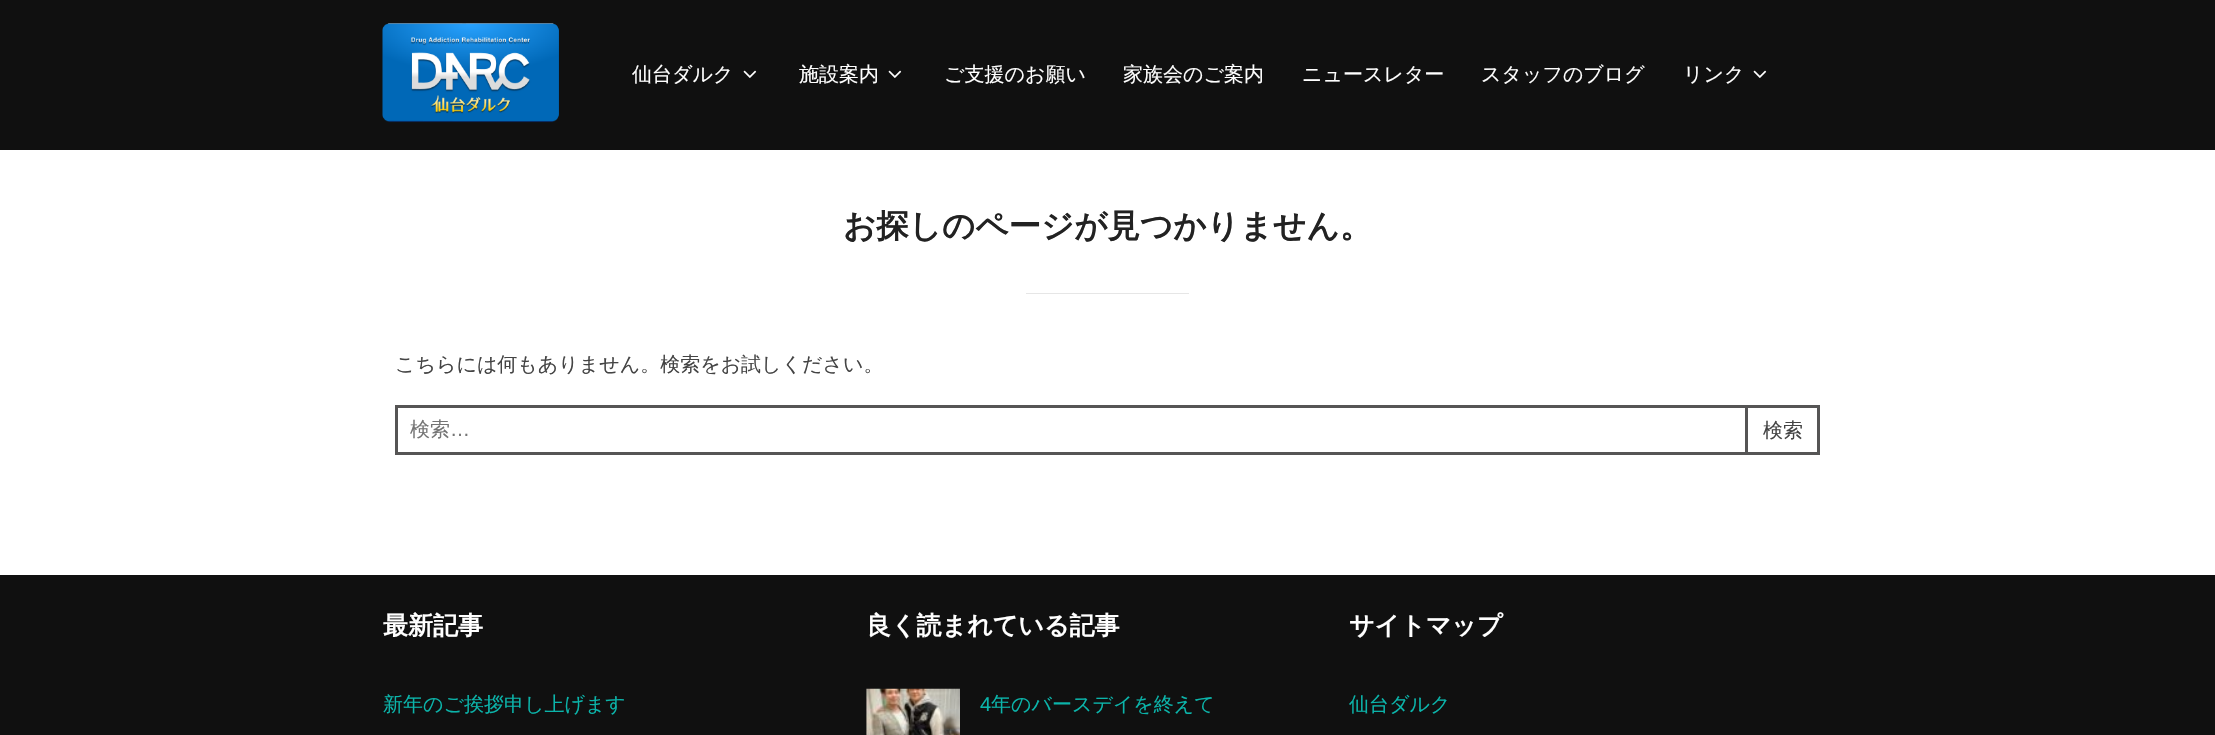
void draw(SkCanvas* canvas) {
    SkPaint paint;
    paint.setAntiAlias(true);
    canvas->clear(0xFFFFFFFF);
    paint.setColor(0xFF101010);
    canvas->drawRect(SkRect::MakeXYWH(0, 0, 2215, 150), paint);
    canvas->drawImageRect(SkImages::DeferredFromEncodedData(SkData::MakeFromFileName("img1.png")), SkRect::MakeXYWH(382, 23, 177, 100), SkSamplingOptions());
    SkFont font1(fontMgr->matchFamilyStyle("WenQuanYi Zen Hei", SkFontStyle(500, SkFontStyle::kNormal_Width, SkFontStyle::kUpright_Slant)), 20);
    font1.setSubpixel(true);
    paint.setColor(0xFFFFFFFF);
    canvas->drawString("仙台ダルク", 632, 81, font1, paint);
    canvas->drawImageRect(SkImages::DeferredFromEncodedData(SkData::MakeFromFileName("img2.png")), SkRect::MakeXYWH(743, 70, 14, 8), SkSamplingOptions());
    canvas->drawString("施設案内", 799, 81, font1, paint);
    canvas->drawImageRect(SkImages::DeferredFromEncodedData(SkData::MakeFromFileName("img2.png")), SkRect::MakeXYWH(888, 70, 14, 8), SkSamplingOptions());
    canvas->drawString("ご支援のお願い", 944, 81, font1, paint);
    canvas->drawString("家族会のご案内", 1123, 81, font1, paint);
    canvas->drawString("ニュースレター", 1302, 81, font1, paint);
    canvas->drawString("スタッフのブログ", 1481, 81, font1, paint);
    canvas->drawString("リンク", 1683, 81, font1, paint);
    canvas->drawImageRect(SkImages::DeferredFromEncodedData(SkData::MakeFromFileName("img2.png")), SkRect::MakeXYWH(1753, 70, 14, 8), SkSamplingOptions());
    SkFont font2(fontMgr->matchFamilyStyle("WenQuanYi Zen Hei", SkFontStyle::Bold()), 32.5f);
    font2.setSubpixel(true);
    paint.setColor(0xFF222222);
    canvas->drawString("お探しのページが見つかりません。", 843, 237, font2, paint);
    paint.setColor(0xFFE6E6E6);
    canvas->drawRect(SkRect::MakeXYWH(1026, 293, 163, 1), paint);
    paint.setColor(0xFF444444);
    canvas->drawString("こちらには何もありません。検索をお試しください。", 395, 371, font1, paint);
    paint.setStyle(SkPaint::kStroke_Style);
    paint.setStrokeWidth(3);
    paint.setColor(0xFF565555);
    canvas->drawRect(SkRect::MakeXYWH(396.5f, 406.5f, 1422, 47), paint);
    paint.setStyle(SkPaint::kFill_Style);
    paint.setColor(0xFF757575);
    canvas->drawString("検索", 410, 436, font1, paint);
    SkFont font3(fontMgr->matchFamilyStyle("Liberation Sans", SkFontStyle::Normal()), 20);
    font3.setSubpixel(true);
    canvas->drawString("…", 450, 436, font3, paint);
    paint.setStyle(SkPaint::kStroke_Style);
    paint.setColor(0xFF565555);
    canvas->drawRect(SkRect::MakeXYWH(1746.5f, 406.5f, 72, 47), paint);
    paint.setStyle(SkPaint::kFill_Style);
    paint.setColor(0xFF444444);
    canvas->drawString("検索", 1763, 437, font1, paint);
    paint.setColor(0xFF101010);
    canvas->drawRect(SkRect::MakeXYWH(0, 575, 2215, 160), paint);
    SkFont font4(fontMgr->matchFamilyStyle("WenQuanYi Zen Hei", SkFontStyle::Bold()), 25);
    font4.setSubpixel(true);
    paint.setColor(0xFFFFFFFF);
    canvas->drawString("最新記事", 383, 634, font4, paint);
    paint.setColor(0xFF0BB4AA);
    canvas->drawString("新年のご挨拶申し上げます", 383, 711, font1, paint);
    paint.setColor(0xFFFFFFFF);
    canvas->drawString("良く読まれている記事", 866, 634, font4, paint);
    canvas->drawImageRect(SkImages::DeferredFromEncodedData(SkData::MakeFromFileName("img3.png")), SkRect::MakeXYWH(866, 688, 94, 47), SkSamplingOptions());
    paint.setColor(0xFF0BB4AA);
    canvas->drawString("4", 980, 711, font3, paint);
    canvas->drawString("年のバースデイを終えて", 991, 711, font1, paint);
    paint.setColor(0xFFFFFFFF);
    canvas->drawString("サイトマップ", 1349, 634, font4, paint);
    paint.setColor(0xFF0BB4AA);
    canvas->drawString("仙台ダルク", 1349, 711, font1, paint);
}
